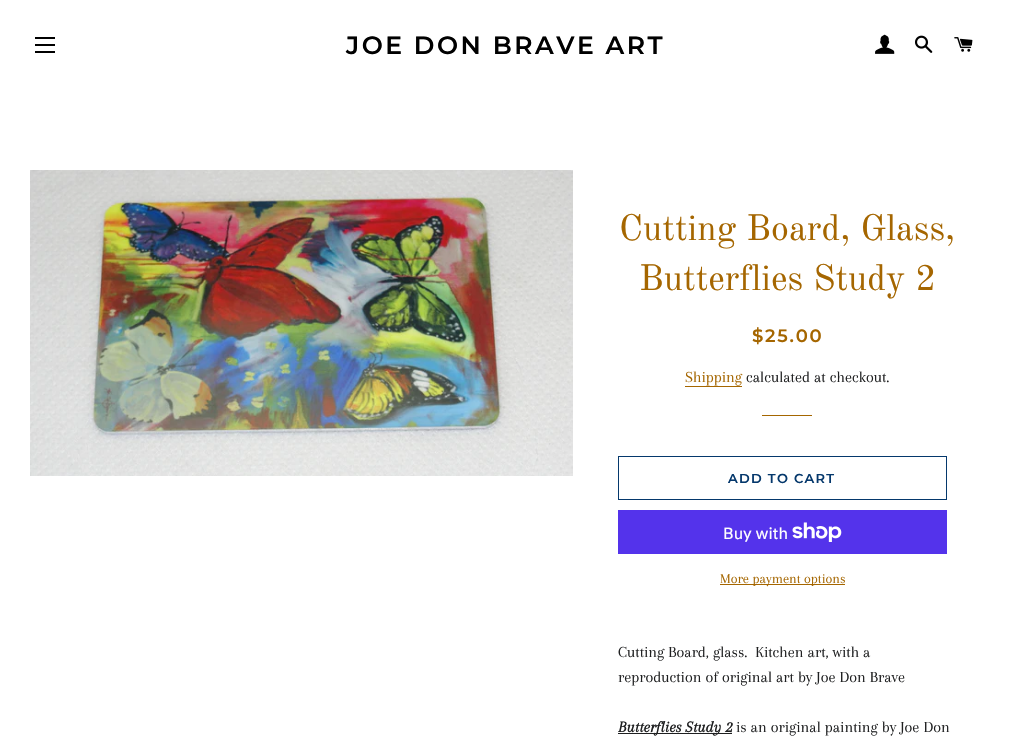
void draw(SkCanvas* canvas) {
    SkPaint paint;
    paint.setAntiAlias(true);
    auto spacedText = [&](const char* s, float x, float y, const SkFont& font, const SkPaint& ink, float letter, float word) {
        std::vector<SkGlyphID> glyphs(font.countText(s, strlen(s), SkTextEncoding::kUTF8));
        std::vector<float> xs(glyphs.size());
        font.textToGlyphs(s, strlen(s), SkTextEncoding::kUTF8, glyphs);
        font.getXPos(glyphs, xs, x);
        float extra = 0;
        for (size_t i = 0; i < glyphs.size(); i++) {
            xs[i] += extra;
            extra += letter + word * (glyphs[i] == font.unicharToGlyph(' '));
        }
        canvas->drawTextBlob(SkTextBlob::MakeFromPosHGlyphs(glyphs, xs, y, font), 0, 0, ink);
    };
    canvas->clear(0xFFFFFFFF);
    paint.setColor(0xFF000000);
    canvas->drawRect(SkRect::MakeXYWH(35, 37, 20, 2), paint);
    canvas->drawRect(SkRect::MakeXYWH(35, 44, 20, 2), paint);
    canvas->drawRect(SkRect::MakeXYWH(35, 51, 20, 2), paint);
    SkFont font1(fontMgr->matchFamilyStyle("Montserrat", SkFontStyle(600, SkFontStyle::kNormal_Width, SkFontStyle::kUpright_Slant)), 25);
    font1.setSubpixel(true);
    spacedText("JOE DON BRAVE ART", 346, 54, font1, paint, 2.5f, 0);
    canvas->drawImageRect(SkImages::DeferredFromEncodedData(SkData::MakeFromFileName("img1.png")), SkRect::MakeXYWH(875, 34, 20, 20), SkSamplingOptions());
    canvas->drawImageRect(SkImages::DeferredFromEncodedData(SkData::MakeFromFileName("img2.png")), SkRect::MakeXYWH(915, 35, 18, 18), SkSamplingOptions());
    canvas->drawImageRect(SkImages::DeferredFromEncodedData(SkData::MakeFromFileName("img3.png")), SkRect::MakeXYWH(954, 37, 19, 15), SkSamplingOptions());
    canvas->drawImageRect(SkImages::DeferredFromEncodedData(SkData::MakeFromFileName("img4.png")), SkRect::MakeXYWH(30, 170, 543, 306), SkSamplingOptions());
    SkFont font2(fontMgr->matchFamilyStyle("Old Standard TT", SkFontStyle::Normal()), 36);
    font2.setSubpixel(true);
    paint.setColor(0xFFA56600);
    canvas->drawString("Cutting Board, Glass,", 619, 240, font2, paint);
    canvas->drawString("Butterflies Study 2", 639, 290, font2, paint);
    SkFont font3(fontMgr->matchFamilyStyle("Montserrat", SkFontStyle(600, SkFontStyle::kNormal_Width, SkFontStyle::kUpright_Slant)), 18);
    font3.setSubpixel(true);
    spacedText("$25.00", 752, 342, font3, paint, 1.75f, 0);
    SkFont font4(fontMgr->matchFamilyStyle("Arapey", SkFontStyle::Normal()), 16);
    font4.setSubpixel(true);
    canvas->drawString("Shipping", 685, 382, font4, paint);
    canvas->drawRect(SkRect::MakeXYWH(685, 386, 57, 1), paint);
    paint.setColor(0xFF1F2021);
    canvas->drawString("calculated at checkout.", 746, 382, font4, paint);
    paint.setColor(0xFFA56600);
    canvas->drawRect(SkRect::MakeXYWH(762, 415, 50, 1), paint);
    paint.setStyle(SkPaint::kStroke_Style);
    paint.setStrokeWidth(1);
    paint.setColor(0xFF05386C);
    canvas->drawRect(SkRect::MakeXYWH(618.5f, 456.5f, 328, 43), paint);
    SkFont font5(fontMgr->matchFamilyStyle("Montserrat", SkFontStyle(600, SkFontStyle::kNormal_Width, SkFontStyle::kUpright_Slant)), 13);
    font5.setSubpixel(true);
    paint.setStyle(SkPaint::kFill_Style);
    spacedText("ADD TO CART", 728, 483, font5, paint, 1.25f, 0);
    paint.setColor(0xFF5433EB);
    canvas->drawRect(SkRect::MakeXYWH(618, 510, 329, 44), paint);
    SkFont font6(fontMgr->matchFamilyStyle("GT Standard", SkFontStyle::Normal()), 16);
    font6.setSubpixel(true);
    paint.setColor(0xFFFFFFFF);
    canvas->drawString("Buy with", 723, 539, font6, paint);
    canvas->drawImageRect(SkImages::DeferredFromEncodedData(SkData::MakeFromFileName("img5.png")), SkRect::MakeXYWH(792, 522, 50, 20), SkSamplingOptions());
    paint.setColor(0xFFA56600);
    canvas->drawRect(SkRect::MakeXYWH(720, 584, 125, 1), paint);
    SkFont font7(fontMgr->matchFamilyStyle("Arapey", SkFontStyle::Normal()), 14);
    font7.setSubpixel(true);
    canvas->drawString("More payment options", 720, 583, font7, paint);
    paint.setColor(0xFF1F2021);
    canvas->drawString("Cutting Board, glass.  Kitchen art, with a", 618, 657, font4, paint);
    canvas->drawString("reproduction of original art by Joe Don Brave", 618, 682, font4, paint);
    canvas->drawRect(SkRect::MakeXYWH(618, 733, 114, 1), paint);
    SkFont font8(fontMgr->matchFamilyStyle("Arapey", SkFontStyle::BoldItalic()), 16);
    font8.setSubpixel(true);
    canvas->drawString("Butterflies Study 2", 618, 732, font8, paint);
    canvas->drawString("is an original painting by Joe Don", 736, 732, font4, paint);
}
